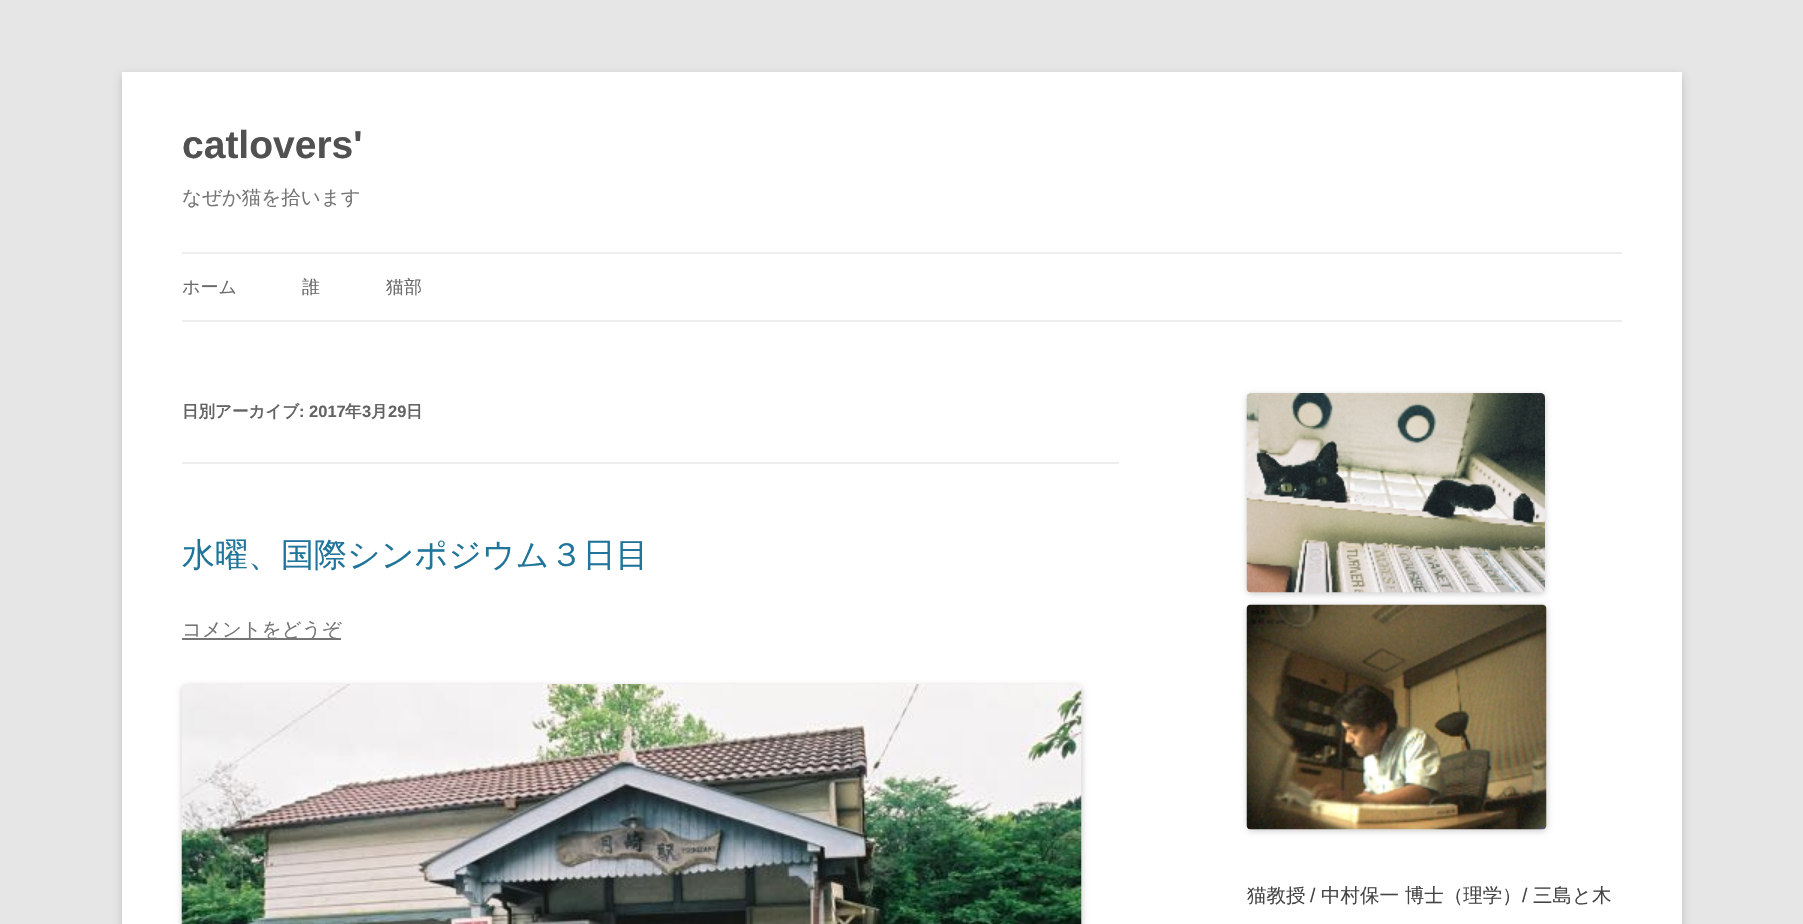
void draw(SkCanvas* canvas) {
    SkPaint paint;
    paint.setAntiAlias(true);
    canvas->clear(0xFFE6E6E6);
    paint.setColor(0x4D646464);
    paint.setMaskFilter(SkMaskFilter::MakeBlur(kNormal_SkBlurStyle, 4.5f));
    canvas->drawRect(SkRect::MakeXYWH(122, 75, 1560, 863), paint);
    paint.setMaskFilter(nullptr);
    paint.setColor(0xFFFFFFFF);
    canvas->drawRect(SkRect::MakeXYWH(122, 72, 1560, 852), paint);
    SkFont font1(fontMgr->matchFamilyStyle("Liberation Sans", SkFontStyle::Bold()), 39);
    font1.setSubpixel(true);
    paint.setColor(0xFF515151);
    canvas->drawString("catlovers'", 182, 158, font1, paint);
    SkFont font2(fontMgr->matchFamilyStyle("WenQuanYi Zen Hei", SkFontStyle(500, SkFontStyle::kNormal_Width, SkFontStyle::kUpright_Slant)), 19.5f);
    font2.setSubpixel(true);
    paint.setColor(0xFF757575);
    canvas->drawString("なぜか猫を拾います", 182, 204, font2, paint);
    paint.setColor(0xFFEDEDED);
    canvas->drawRect(SkRect::MakeXYWH(182, 252, 1440, 2), paint);
    canvas->drawRect(SkRect::MakeXYWH(182, 320, 1440, 2), paint);
    SkFont font3(fontMgr->matchFamilyStyle("WenQuanYi Zen Hei", SkFontStyle(500, SkFontStyle::kNormal_Width, SkFontStyle::kUpright_Slant)), 18);
    font3.setSubpixel(true);
    paint.setColor(0xFF6A6A6A);
    canvas->drawString("ホーム", 182, 293, font3, paint);
    canvas->drawString("誰", 302, 293, font3, paint);
    canvas->drawString("猫部", 386, 293, font3, paint);
    paint.setColor(0xFFEDEDED);
    canvas->drawRect(SkRect::MakeXYWH(182, 462, 937, 2), paint);
    SkFont font4(fontMgr->matchFamilyStyle("WenQuanYi Zen Hei", SkFontStyle::Bold()), 16.5f);
    font4.setSubpixel(true);
    paint.setColor(0xFF636363);
    canvas->drawString("日別アーカイブ", 182, 417, font4, paint);
    SkFont font5(fontMgr->matchFamilyStyle("Liberation Sans", SkFontStyle::Bold()), 16.5f);
    font5.setSubpixel(true);
    canvas->drawString(": 2017", 299, 417, font5, paint);
    canvas->drawString("年", 345, 417, font4, paint);
    canvas->drawString("3", 362, 417, font5, paint);
    canvas->drawString("月", 371, 417, font4, paint);
    canvas->drawString("29", 388, 417, font5, paint);
    canvas->drawString("日", 406, 417, font4, paint);
    SkFont font6(fontMgr->matchFamilyStyle("WenQuanYi Zen Hei", SkFontStyle(500, SkFontStyle::kNormal_Width, SkFontStyle::kUpright_Slant)), 33);
    font6.setSubpixel(true);
    paint.setColor(0xFF21759B);
    canvas->drawString("水曜、国際シンポジウム３日目", 182, 566, font6, paint);
    paint.setColor(0xFF757575);
    canvas->drawRect(SkRect::MakeXYWH(182, 638, 159, 2), paint);
    canvas->drawString("コメントをどうぞ", 182, 636, font2, paint);
    paint.setColor(0x33000000);
    paint.setMaskFilter(SkMaskFilter::MakeBlur(kNormal_SkBlurStyle, 3));
    canvas->drawRoundRect(SkRect::MakeXYWH(182, 686, 900, 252), 5, 5, paint);
    paint.setMaskFilter(nullptr);
    canvas->drawImageRect(SkImages::DeferredFromEncodedData(SkData::MakeFromFileName("img1.png")), SkRect::MakeXYWH(181, 684, 901, 240), SkSamplingOptions());
    paint.setMaskFilter(SkMaskFilter::MakeBlur(kNormal_SkBlurStyle, 3));
    canvas->drawRoundRect(SkRect::MakeXYWH(1247, 395, 298, 199), 5, 5, paint);
    paint.setMaskFilter(nullptr);
    canvas->drawImageRect(SkImages::DeferredFromEncodedData(SkData::MakeFromFileName("img2.png")), SkRect::MakeXYWH(1246, 393, 299, 200), SkSamplingOptions());
    paint.setMaskFilter(SkMaskFilter::MakeBlur(kNormal_SkBlurStyle, 3));
    canvas->drawRoundRect(SkRect::MakeXYWH(1247, 606, 300, 225), 5, 5, paint);
    paint.setMaskFilter(nullptr);
    canvas->drawImageRect(SkImages::DeferredFromEncodedData(SkData::MakeFromFileName("img3.png")), SkRect::MakeXYWH(1246, 604, 301, 226), SkSamplingOptions());
    paint.setColor(0xFF444444);
    canvas->drawString("猫教授", 1247, 902, font2, paint);
    SkFont font7(fontMgr->matchFamilyStyle("Liberation Sans", SkFontStyle::Normal()), 19.5f);
    font7.setSubpixel(true);
    canvas->drawString("/", 1310, 902, font7, paint);
    canvas->drawString("中村保一 博士（理学）", 1321, 902, font2, paint);
    canvas->drawString("/", 1522, 902, font7, paint);
    canvas->drawString("三島と木", 1533, 902, font2, paint);
}
